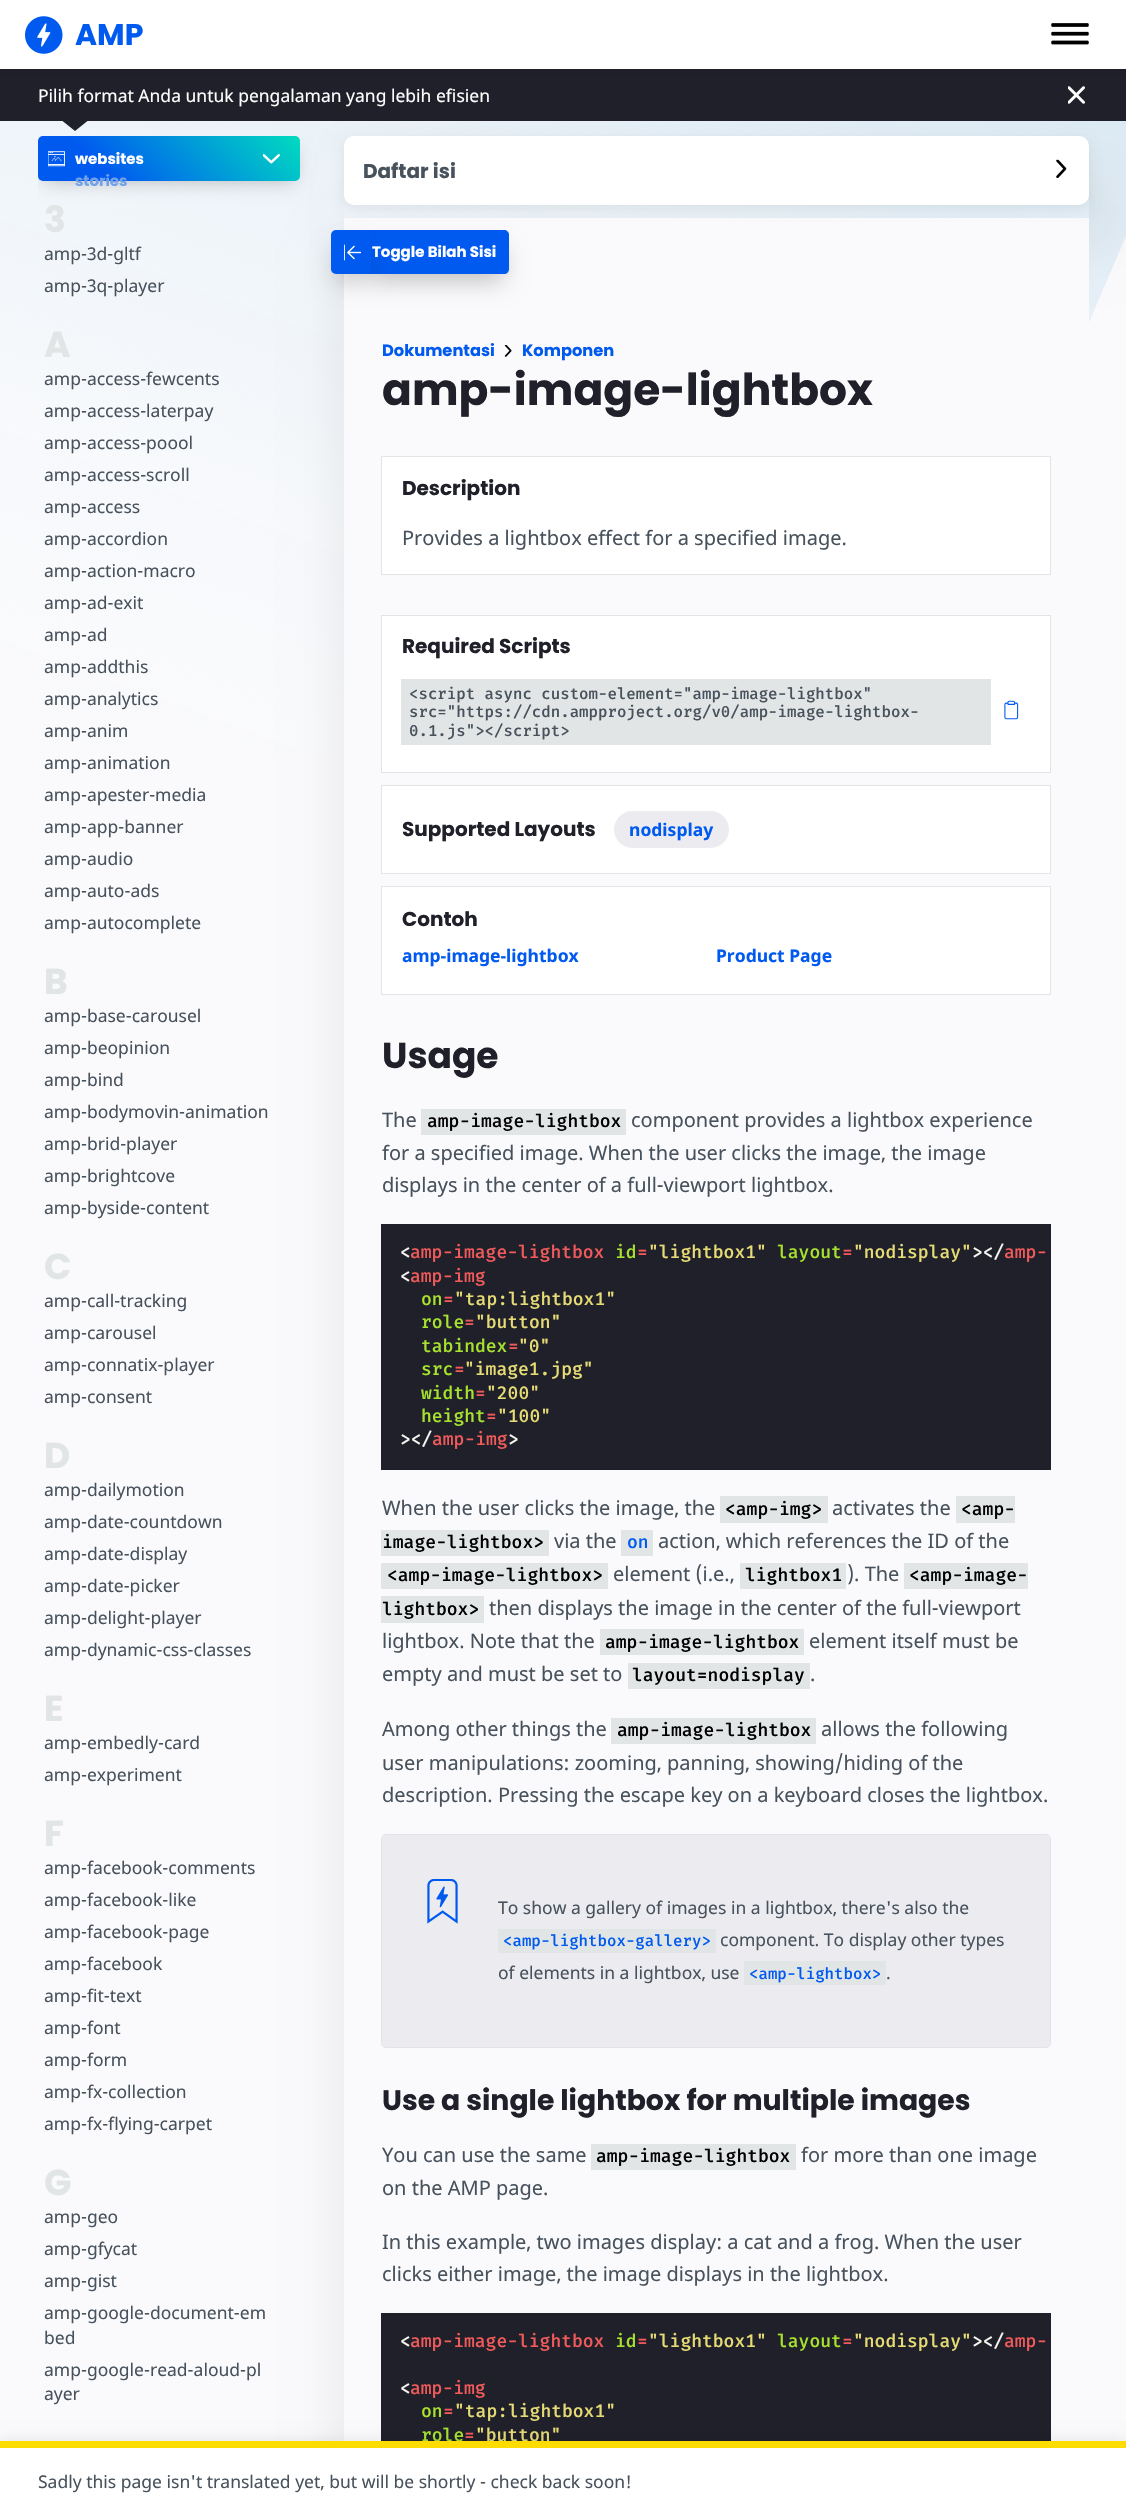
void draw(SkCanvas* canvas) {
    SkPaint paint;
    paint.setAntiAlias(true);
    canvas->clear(0xFFFAFAFC);
    canvas->drawImageRect(SkImages::DeferredFromEncodedData(SkData::MakeFromFileName("img1.png")), SkRect::MakeXYWH(0, 121, 1126, 632), SkSamplingOptions());
    canvas->save();
    canvas->clipRect(SkRect::MakeXYWH(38, 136, 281, 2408));
    paint.setColor(0x40000000);
    paint.setMaskFilter(SkMaskFilter::MakeBlur(kNormal_SkBlurStyle, 9.5f));
    canvas->drawRect(SkRect::MakeXYWH(44, 149, 250, 32), paint);
    paint.setMaskFilter(nullptr);
    canvas->restore();
    canvas->save();
    canvas->clipPath(SkPathBuilder(SkPathFillType::kEvenOdd).moveTo(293, 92).lineTo(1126, 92).lineTo(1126, 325).lineTo(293, 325).close().moveTo(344, 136).lineTo(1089, 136).lineTo(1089, 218).lineTo(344, 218).close().detach(), true);
    paint.setColor(0x0D000000);
    paint.setMaskFilter(SkMaskFilter::MakeBlur(kNormal_SkBlurStyle, 25));
    canvas->drawRect(SkRect::MakeXYWH(369, 168, 745, 81), paint);
    paint.setMaskFilter(nullptr);
    canvas->restore();
    {
        const SkColor colors[] = {0xFF00DCC0, 0xFF005AF0};
        const float stops[] = {0, 0.75f};
        const SkPoint ends[] = {{246, 82}, {92, 236}};
        paint.setShader(SkGradientShader::MakeLinear(ends, colors, stops, 2, SkTileMode::kClamp));
        paint.setAlpha(255);
    }
    canvas->drawRoundRect(SkRect::MakeXYWH(38, 136, 262, 45), 5, 5, paint);
    paint.setShader(nullptr);
    paint.setColor(0x0D000000);
    paint.setMaskFilter(SkMaskFilter::MakeBlur(kNormal_SkBlurStyle, 19));
    canvas->drawRect(SkRect::MakeXYWH(331, 236, 695, 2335), paint);
    paint.setMaskFilter(nullptr);
    paint.setColor(0xFFFAFAFC);
    canvas->drawRect(SkRect::MakeXYWH(344, 218, 745, 2223), paint);
    paint.setColor(0x12000000);
    paint.setMaskFilter(SkMaskFilter::MakeBlur(kNormal_SkBlurStyle, 6));
    canvas->drawRoundRect(SkRect::MakeXYWH(344, 139, 745, 69), 10, 10, paint);
    paint.setMaskFilter(nullptr);
    paint.setColor(0xFF20202A);
    canvas->drawRect(SkRect::MakeXYWH(0, 69, 1126, 52), paint);
    canvas->drawImageRect(SkImages::DeferredFromEncodedData(SkData::MakeFromFileName("img4.png")), SkRect::MakeXYWH(1068, 86, 17, 18), SkSamplingOptions());
    paint.setColor(0x12000000);
    paint.setMaskFilter(SkMaskFilter::MakeBlur(kNormal_SkBlurStyle, 6));
    canvas->drawRect(SkRect::MakeXYWH(0, 3, 1126, 68), paint);
    paint.setMaskFilter(nullptr);
    paint.setColor(0xFFFFFFFF);
    canvas->drawRect(SkRect::MakeXYWH(0, 0, 1126, 69), paint);
    canvas->drawImageRect(SkImages::DeferredFromEncodedData(SkData::MakeFromFileName("img2.png")), SkRect::MakeXYWH(25, 16, 38, 38), SkSamplingOptions());
    SkFont font1(fontMgr->matchFamilyStyle("Poppins", SkFontStyle::Bold()), 30);
    font1.setSubpixel(true);
    paint.setColor(0xFF005AF0);
    canvas->drawString("AMP", 75, 45, font1, paint);
    canvas->drawImageRect(SkImages::DeferredFromEncodedData(SkData::MakeFromFileName("img3.png")), SkRect::MakeXYWH(1051, 23, 38, 22), SkSamplingOptions());
    SkFont font2(fontMgr->matchFamilyStyle("Noto Sans", SkFontStyle::Normal()), 17.5f);
    font2.setSubpixel(true);
    paint.setColor(0xFFFFFFFF);
    canvas->drawString("Pilih format Anda untuk pengalaman yang lebih efisien", 38, 102, font2, paint);
    paint.setColor(0xFF20202A);
    canvas->drawPath(SkPathBuilder().moveTo(62.5f, 121).lineTo(87.5f, 121).lineTo(75, 131).close().detach(), paint);
    canvas->drawImageRect(SkImages::DeferredFromEncodedData(SkData::MakeFromFileName("img5.png")), SkRect::MakeXYWH(48, 151, 17, 16), SkSamplingOptions());
    SkFont font3(fontMgr->matchFamilyStyle("Poppins", SkFontStyle::Bold()), 15);
    font3.setSubpixel(true);
    paint.setColor(0xFFFFFFFF);
    canvas->drawString("websites", 75, 164, font3, paint);
    canvas->drawImageRect(SkImages::DeferredFromEncodedData(SkData::MakeFromFileName("img6.png")), SkRect::MakeXYWH(263, 154, 17, 10), SkSamplingOptions());
    paint.setColor(0xFF73A1E9);
    canvas->drawString("stories", 75, 186, font3, paint);
    SkFont font4(fontMgr->matchFamilyStyle("Poppins", SkFontStyle::Bold()), 36);
    font4.setSubpixel(true);
    paint.setColor(0xFFE2E5E6);
    canvas->drawString("3", 44, 232, font4, paint);
    paint.setColor(0xFF48525C);
    canvas->drawString("amp-3d-gltf", 44, 260, font2, paint);
    canvas->drawString("amp-3q-player", 44, 292, font2, paint);
    paint.setColor(0xFFE2E5E6);
    canvas->drawString("A", 44, 357, font4, paint);
    paint.setColor(0xFF48525C);
    canvas->drawString("amp-access-fewcents", 44, 385, font2, paint);
    canvas->drawString("amp-access-laterpay", 44, 417, font2, paint);
    canvas->drawString("amp-access-poool", 44, 449, font2, paint);
    canvas->drawString("amp-access-scroll", 44, 481, font2, paint);
    canvas->drawString("amp-access", 44, 513, font2, paint);
    canvas->drawString("amp-accordion", 44, 545, font2, paint);
    canvas->drawString("amp-action-macro", 44, 577, font2, paint);
    canvas->drawString("amp-ad-exit", 44, 609, font2, paint);
    canvas->drawString("amp-ad", 44, 641, font2, paint);
    canvas->drawString("amp-addthis", 44, 673, font2, paint);
    canvas->drawString("amp-analytics", 44, 705, font2, paint);
    canvas->drawString("amp-anim", 44, 737, font2, paint);
    canvas->drawString("amp-animation", 44, 769, font2, paint);
    canvas->drawString("amp-apester-media", 44, 801, font2, paint);
    canvas->drawString("amp-app-banner", 44, 833, font2, paint);
    canvas->drawString("amp-audio", 44, 865, font2, paint);
    canvas->drawString("amp-auto-ads", 44, 897, font2, paint);
    canvas->drawString("amp-autocomplete", 44, 929, font2, paint);
    paint.setColor(0xFFE2E5E6);
    canvas->drawString("B", 44, 994, font4, paint);
    paint.setColor(0xFF48525C);
    canvas->drawString("amp-base-carousel", 44, 1022, font2, paint);
    canvas->drawString("amp-beopinion", 44, 1054, font2, paint);
    canvas->drawString("amp-bind", 44, 1086, font2, paint);
    canvas->drawString("amp-bodymovin-animation", 44, 1118, font2, paint);
    canvas->drawString("amp-brid-player", 44, 1150, font2, paint);
    canvas->drawString("amp-brightcove", 44, 1182, font2, paint);
    canvas->drawString("amp-byside-content", 44, 1214, font2, paint);
    paint.setColor(0xFFE2E5E6);
    canvas->drawString("C", 44, 1279, font4, paint);
    paint.setColor(0xFF48525C);
    canvas->drawString("amp-call-tracking", 44, 1307, font2, paint);
    canvas->drawString("amp-carousel", 44, 1339, font2, paint);
    canvas->drawString("amp-connatix-player", 44, 1371, font2, paint);
    canvas->drawString("amp-consent", 44, 1403, font2, paint);
    paint.setColor(0xFFE2E5E6);
    canvas->drawString("D", 44, 1468, font4, paint);
    paint.setColor(0xFF48525C);
    canvas->drawString("amp-dailymotion", 44, 1496, font2, paint);
    canvas->drawString("amp-date-countdown", 44, 1528, font2, paint);
    canvas->drawString("amp-date-display", 44, 1560, font2, paint);
    canvas->drawString("amp-date-picker", 44, 1592, font2, paint);
    canvas->drawString("amp-delight-player", 44, 1624, font2, paint);
    canvas->drawString("amp-dynamic-css-classes", 44, 1656, font2, paint);
    paint.setColor(0xFFE2E5E6);
    canvas->drawString("E", 44, 1721, font4, paint);
    paint.setColor(0xFF48525C);
    canvas->drawString("amp-embedly-card", 44, 1749, font2, paint);
    canvas->drawString("amp-experiment", 44, 1781, font2, paint);
    paint.setColor(0xFFE2E5E6);
    canvas->drawString("F", 44, 1846, font4, paint);
    paint.setColor(0xFF48525C);
    canvas->drawString("amp-facebook-comments", 44, 1874, font2, paint);
    canvas->drawString("amp-facebook-like", 44, 1906, font2, paint);
    canvas->drawString("amp-facebook-page", 44, 1938, font2, paint);
    canvas->drawString("amp-facebook", 44, 1970, font2, paint);
    canvas->drawString("amp-fit-text", 44, 2002, font2, paint);
    canvas->drawString("amp-font", 44, 2034, font2, paint);
    canvas->drawString("amp-form", 44, 2066, font2, paint);
    canvas->drawString("amp-fx-collection", 44, 2098, font2, paint);
    canvas->drawString("amp-fx-flying-carpet", 44, 2130, font2, paint);
    paint.setColor(0xFFE2E5E6);
    canvas->drawString("G", 44, 2195, font4, paint);
    paint.setColor(0xFF48525C);
    canvas->drawString("amp-geo", 44, 2223, font2, paint);
    canvas->drawString("amp-gfycat", 44, 2255, font2, paint);
    canvas->drawString("amp-gist", 44, 2287, font2, paint);
    canvas->drawString("amp-google-document-em", 44, 2319, font2, paint);
    canvas->drawString("bed", 44, 2344, font2, paint);
    canvas->drawString("amp-google-read-aloud-pl", 44, 2376, font2, paint);
    canvas->drawString("ayer", 44, 2400, font2, paint);
    paint.setColor(0xFFFFFFFF);
    canvas->drawRoundRect(SkRect::MakeXYWH(344, 136, 745, 69), 10, 10, paint);
    SkFont font5(fontMgr->matchFamilyStyle("Poppins", SkFontStyle::Bold()), 20);
    font5.setSubpixel(true);
    paint.setColor(0xFF48525C);
    canvas->drawString("Daftar isi", 363, 178, font5, paint);
    canvas->drawImageRect(SkImages::DeferredFromEncodedData(SkData::MakeFromFileName("img7.png")), SkRect::MakeXYWH(1056, 159, 11, 19), SkSamplingOptions());
    paint.setColor(0x40000000);
    paint.setMaskFilter(SkMaskFilter::MakeBlur(kNormal_SkBlurStyle, 12.5f));
    canvas->drawRect(SkRect::MakeXYWH(371, 249, 132, 31), paint);
    paint.setMaskFilter(nullptr);
    paint.setColor(0xFF005AF0);
    canvas->drawPath(SkPathBuilder().moveTo(365, 230).lineTo(504, 230).cubicTo(507, 230, 509, 232, 509, 235).lineTo(509, 269).cubicTo(509, 272, 507, 274, 504, 274).lineTo(365, 274).close().detach(), paint);
    paint.setColor(0x40000000);
    paint.setMaskFilter(SkMaskFilter::MakeBlur(kNormal_SkBlurStyle, 12.5f));
    canvas->drawRect(SkRect::MakeXYWH(338, 249, 27, 31), paint);
    paint.setMaskFilter(nullptr);
    paint.setColor(0xFF005AF0);
    canvas->drawRoundRect(SkRect::MakeXYWH(331, 230, 40, 44), 5, 5, paint);
    canvas->drawImageRect(SkImages::DeferredFromEncodedData(SkData::MakeFromFileName("img8.png")), SkRect::MakeXYWH(344, 244, 17, 17), SkSamplingOptions());
    paint.setColor(0xFFFFFFFF);
    canvas->drawString("Toggle Bilah Sisi", 372, 257, font3, paint);
    SkFont font6(fontMgr->matchFamilyStyle("Poppins", SkFontStyle::Bold()), 16.25f);
    font6.setSubpixel(true);
    paint.setColor(0xFF005AF0);
    canvas->drawString("Dokumentasi", 382, 356, font6, paint);
    canvas->drawImageRect(SkImages::DeferredFromEncodedData(SkData::MakeFromFileName("img9.png")), SkRect::MakeXYWH(504, 345, 8, 12), SkSamplingOptions());
    canvas->drawString("Komponen", 522, 356, font6, paint);
    SkFont font7(fontMgr->matchFamilyStyle("Poppins", SkFontStyle::Bold()), 44);
    font7.setSubpixel(true);
    paint.setColor(0xFF20202A);
    canvas->drawString("amp-image-lightbox", 382, 405, font7, paint);
    paint.setColor(0xFFFFFFFF);
    canvas->drawRect(SkRect::MakeXYWH(381.5f, 456.5f, 669, 118), paint);
    paint.setStyle(SkPaint::kStroke_Style);
    paint.setStrokeWidth(1);
    paint.setColor(0xFFE2E5E6);
    canvas->drawRect(SkRect::MakeXYWH(381.5f, 456.5f, 669, 118), paint);
    paint.setStyle(SkPaint::kFill_Style);
    paint.setColor(0xFF20202A);
    canvas->drawString("Description", 402, 495, font5, paint);
    SkFont font8(fontMgr->matchFamilyStyle("Noto Sans", SkFontStyle::Normal()), 20);
    font8.setSubpixel(true);
    paint.setColor(0xFF48525C);
    canvas->drawString("Provides a lightbox effect for a specified image.", 402, 545, font8, paint);
    paint.setColor(0xFFFFFFFF);
    canvas->drawRect(SkRect::MakeXYWH(381.5f, 615.5f, 669, 157), paint);
    paint.setStyle(SkPaint::kStroke_Style);
    paint.setColor(0xFFE2E5E6);
    canvas->drawRect(SkRect::MakeXYWH(381.5f, 615.5f, 669, 157), paint);
    paint.setStyle(SkPaint::kFill_Style);
    paint.setColor(0xFF20202A);
    canvas->drawString("Required Scripts", 402, 653, font5, paint);
    paint.setColor(0xFFE2E5E6);
    canvas->drawRect(SkRect::MakeXYWH(401, 679, 590, 66), paint);
    SkFont font9(fontMgr->matchFamilyStyle("Fira Mono", SkFontStyle(500, SkFontStyle::kNormal_Width, SkFontStyle::kUpright_Slant)), 15.75f);
    font9.setSubpixel(true);
    paint.setColor(0xFF48525C);
    canvas->drawString("<script async custom-element=\"amp-image-lightbox\"", 409, 699, font9, paint);
    canvas->drawString("src=\"https://cdn.ampproject.org/v0/amp-image-lightbox-", 409, 717, font9, paint);
    canvas->drawString("0.1.js\"></script>", 409, 736, font9, paint);
    canvas->drawImageRect(SkImages::DeferredFromEncodedData(SkData::MakeFromFileName("img10.png")), SkRect::MakeXYWH(1004, 700, 15, 20), SkSamplingOptions());
    paint.setColor(0xFFFFFFFF);
    canvas->drawRect(SkRect::MakeXYWH(381.5f, 785.5f, 669, 88), paint);
    paint.setStyle(SkPaint::kStroke_Style);
    paint.setColor(0xFFE2E5E6);
    canvas->drawRect(SkRect::MakeXYWH(381.5f, 785.5f, 669, 88), paint);
    paint.setStyle(SkPaint::kFill_Style);
    paint.setColor(0xFF20202A);
    canvas->drawString("Supported Layouts", 402, 836, font5, paint);
    paint.setColor(0xFFEBEBF0);
    canvas->drawRoundRect(SkRect::MakeXYWH(614, 811, 115, 37), 18.5f, 18.5f, paint);
    SkFont font10(fontMgr->matchFamilyStyle("Noto Sans", SkFontStyle::Bold()), 17.5f);
    font10.setSubpixel(true);
    paint.setColor(0xFF005AF0);
    canvas->drawString("nodisplay", 629, 836, font10, paint);
    paint.setColor(0xFFFFFFFF);
    canvas->drawRect(SkRect::MakeXYWH(381.5f, 886.5f, 669, 108), paint);
    paint.setStyle(SkPaint::kStroke_Style);
    paint.setColor(0xFFE2E5E6);
    canvas->drawRect(SkRect::MakeXYWH(381.5f, 886.5f, 669, 108), paint);
    paint.setStyle(SkPaint::kFill_Style);
    paint.setColor(0xFF20202A);
    canvas->drawString("Contoh", 402, 926, font5, paint);
    paint.setColor(0xFF005AF0);
    canvas->drawString("amp-image-lightbox", 402, 962, font10, paint);
    canvas->drawString("Product Page", 716, 962, font10, paint);
    paint.setColor(0xFF20202A);
    canvas->drawString("Usage", 382, 1068, font4, paint);
    paint.setColor(0xFF48525C);
    canvas->drawString("The", 382, 1127, font8, paint);
    paint.setColor(0xFFE2E5E6);
    canvas->drawRect(SkRect::MakeXYWH(421, 1109, 205, 26), paint);
    SkFont font11(fontMgr->matchFamilyStyle("Fira Mono", SkFontStyle(500, SkFontStyle::kNormal_Width, SkFontStyle::kUpright_Slant)), 18);
    font11.setSubpixel(true);
    paint.setColor(0xFF000000);
    canvas->drawString("amp-image-lightbox", 427, 1127, font11, paint);
    paint.setColor(0xFF48525C);
    canvas->drawString("component provides a lightbox experience", 631, 1127, font8, paint);
    canvas->drawString("for a specified image. When the user clicks the image, the image", 382, 1160, font8, paint);
    canvas->drawString("displays in the center of a full-viewport lightbox.", 382, 1192, font8, paint);
    paint.setColor(0xFF20202A);
    canvas->drawRect(SkRect::MakeXYWH(381, 1224, 670, 246), paint);
    paint.setColor(0xFFF8F8F2);
    canvas->drawString("<", 400, 1258, font11, paint);
    paint.setColor(0xFFF15A5A);
    canvas->drawString("amp-image-lightbox", 410, 1258, font11, paint);
    paint.setColor(0xFFA6E22E);
    canvas->drawString("id", 615, 1258, font11, paint);
    paint.setColor(0xFFF15A5A);
    canvas->drawString("=", 637, 1258, font11, paint);
    paint.setColor(0xFFE6DB74);
    canvas->drawString("\"lightbox1\"", 648, 1258, font11, paint);
    paint.setColor(0xFFA6E22E);
    canvas->drawString("layout", 777, 1258, font11, paint);
    paint.setColor(0xFFF15A5A);
    canvas->drawString("=", 842, 1258, font11, paint);
    paint.setColor(0xFFE6DB74);
    canvas->drawString("\"nodisplay\"", 853, 1258, font11, paint);
    paint.setColor(0xFFF8F8F2);
    canvas->drawString("></", 972, 1258, font11, paint);
    paint.setColor(0xFFF15A5A);
    canvas->drawString("amp-", 1004, 1258, font11, paint);
    paint.setColor(0xFFF8F8F2);
    canvas->drawString("<", 400, 1282, font11, paint);
    paint.setColor(0xFFF15A5A);
    canvas->drawString("amp-img", 410, 1282, font11, paint);
    paint.setColor(0xFFA6E22E);
    canvas->drawString("on", 421, 1305, font11, paint);
    paint.setColor(0xFFF15A5A);
    canvas->drawString("=", 443, 1305, font11, paint);
    paint.setColor(0xFFE6DB74);
    canvas->drawString("\"tap:lightbox1\"", 454, 1305, font11, paint);
    paint.setColor(0xFFA6E22E);
    canvas->drawString("role", 421, 1328, font11, paint);
    paint.setColor(0xFFF15A5A);
    canvas->drawString("=", 464, 1328, font11, paint);
    paint.setColor(0xFFE6DB74);
    canvas->drawString("\"button\"", 475, 1328, font11, paint);
    paint.setColor(0xFFA6E22E);
    canvas->drawString("tabindex", 421, 1352, font11, paint);
    paint.setColor(0xFFF15A5A);
    canvas->drawString("=", 508, 1352, font11, paint);
    paint.setColor(0xFFE6DB74);
    canvas->drawString("\"0\"", 518, 1352, font11, paint);
    paint.setColor(0xFFA6E22E);
    canvas->drawString("src", 421, 1375, font11, paint);
    paint.setColor(0xFFF15A5A);
    canvas->drawString("=", 454, 1375, font11, paint);
    paint.setColor(0xFFE6DB74);
    canvas->drawString("\"image1.jpg\"", 464, 1375, font11, paint);
    paint.setColor(0xFFA6E22E);
    canvas->drawString("width", 421, 1399, font11, paint);
    paint.setColor(0xFFF15A5A);
    canvas->drawString("=", 475, 1399, font11, paint);
    paint.setColor(0xFFE6DB74);
    canvas->drawString("\"200\"", 486, 1399, font11, paint);
    paint.setColor(0xFFA6E22E);
    canvas->drawString("height", 421, 1422, font11, paint);
    paint.setColor(0xFFF15A5A);
    canvas->drawString("=", 486, 1422, font11, paint);
    paint.setColor(0xFFE6DB74);
    canvas->drawString("\"100\"", 497, 1422, font11, paint);
    paint.setColor(0xFFF8F8F2);
    canvas->drawString("></", 400, 1445, font11, paint);
    paint.setColor(0xFFF15A5A);
    canvas->drawString("amp-img", 432, 1445, font11, paint);
    paint.setColor(0xFFF8F8F2);
    canvas->drawString(">", 508, 1445, font11, paint);
    paint.setColor(0xFF48525C);
    canvas->drawString("When the user clicks the image, the", 382, 1515, font8, paint);
    paint.setColor(0xFFE2E5E6);
    canvas->drawRect(SkRect::MakeXYWH(720, 1496, 108, 27), paint);
    paint.setColor(0xFF000000);
    canvas->drawString("<amp-img>", 725, 1515, font11, paint);
    paint.setColor(0xFF48525C);
    canvas->drawString("activates the", 832, 1515, font8, paint);
    paint.setColor(0xFFE2E5E6);
    canvas->drawRect(SkRect::MakeXYWH(956, 1496, 59, 27), paint);
    paint.setColor(0xFF000000);
    canvas->drawString("<amp-", 961, 1515, font11, paint);
    paint.setColor(0xFFE2E5E6);
    canvas->drawRect(SkRect::MakeXYWH(381, 1530, 168, 26), paint);
    paint.setColor(0xFF000000);
    canvas->drawString("image-lightbox>", 382, 1548, font11, paint);
    paint.setColor(0xFF48525C);
    canvas->drawString("via the", 554, 1548, font8, paint);
    paint.setColor(0xFFE2E5E6);
    canvas->drawRect(SkRect::MakeXYWH(621, 1530, 32, 26), paint);
    paint.setColor(0xFF005AF0);
    canvas->drawString("on", 627, 1548, font11, paint);
    paint.setColor(0xFF48525C);
    canvas->drawString("action, which references the ID of the", 658, 1548, font8, paint);
    paint.setColor(0xFFE2E5E6);
    canvas->drawRect(SkRect::MakeXYWH(381, 1563, 227, 26), paint);
    paint.setColor(0xFF000000);
    canvas->drawString("<amp-image-lightbox>", 387, 1581, font11, paint);
    paint.setColor(0xFF48525C);
    canvas->drawString("element (i.e.,", 613, 1581, font8, paint);
    paint.setColor(0xFFE2E5E6);
    canvas->drawRect(SkRect::MakeXYWH(740, 1563, 106, 26), paint);
    paint.setColor(0xFF000000);
    canvas->drawString("lightbox1", 745, 1581, font11, paint);
    paint.setColor(0xFF48525C);
    canvas->drawString("). The", 847, 1581, font8, paint);
    paint.setColor(0xFFE2E5E6);
    canvas->drawRect(SkRect::MakeXYWH(904, 1563, 124, 26), paint);
    paint.setColor(0xFF000000);
    canvas->drawString("<amp-image-", 909, 1581, font11, paint);
    paint.setColor(0xFFE2E5E6);
    canvas->drawRect(SkRect::MakeXYWH(381, 1596, 103, 27), paint);
    paint.setColor(0xFF000000);
    canvas->drawString("lightbox>", 382, 1615, font11, paint);
    paint.setColor(0xFF48525C);
    canvas->drawString("then displays the image in the center of the full-viewport", 489, 1615, font8, paint);
    canvas->drawString("lightbox. Note that the", 382, 1648, font8, paint);
    paint.setColor(0xFFE2E5E6);
    canvas->drawRect(SkRect::MakeXYWH(600, 1629, 204, 26), paint);
    paint.setColor(0xFF000000);
    canvas->drawString("amp-image-lightbox", 605, 1648, font11, paint);
    paint.setColor(0xFF48525C);
    canvas->drawString("element itself must be", 809, 1648, font8, paint);
    canvas->drawString("empty and must be set to", 382, 1681, font8, paint);
    paint.setColor(0xFFE2E5E6);
    canvas->drawRect(SkRect::MakeXYWH(628, 1663, 182, 26), paint);
    paint.setColor(0xFF000000);
    canvas->drawString("layout=nodisplay", 632, 1681, font11, paint);
    paint.setColor(0xFF48525C);
    canvas->drawString(".", 810, 1681, font8, paint);
    canvas->drawString("Among other things the", 382, 1736, font8, paint);
    paint.setColor(0xFFE2E5E6);
    canvas->drawRect(SkRect::MakeXYWH(611, 1718, 205, 26), paint);
    paint.setColor(0xFF000000);
    canvas->drawString("amp-image-lightbox", 617, 1736, font11, paint);
    paint.setColor(0xFF48525C);
    canvas->drawString("allows the following", 821, 1736, font8, paint);
    canvas->drawString("user manipulations: zooming, panning, showing/hiding of the", 382, 1770, font8, paint);
    canvas->drawString("description. Pressing the escape key on a keyboard closes the lightbox.", 382, 1802, font8, paint);
    paint.setColor(0xFFEBEBF0);
    canvas->drawRoundRect(SkRect::MakeXYWH(381.5f, 1834.5f, 669, 213), 4.5f, 4.5f, paint);
    paint.setStyle(SkPaint::kStroke_Style);
    paint.setColor(0xFFE2E5E6);
    canvas->drawRoundRect(SkRect::MakeXYWH(381.5f, 1834.5f, 669, 213), 4.5f, 4.5f, paint);
    canvas->drawImageRect(SkImages::DeferredFromEncodedData(SkData::MakeFromFileName("img11.png")), SkRect::MakeXYWH(427, 1879, 31, 45), SkSamplingOptions());
    paint.setStyle(SkPaint::kFill_Style);
    paint.setColor(0xFF48525C);
    canvas->drawString("To show a gallery of images in a lightbox, there's also the", 498, 1914, font2, paint);
    paint.setColor(0xFFE2E5E6);
    canvas->drawRect(SkRect::MakeXYWH(498, 1929, 218, 24), paint);
    paint.setColor(0xFF005AF0);
    canvas->drawString("<amp-lightbox-gallery>", 503, 1946, font9, paint);
    paint.setColor(0xFF48525C);
    canvas->drawString("component. To display other types", 720, 1946, font2, paint);
    canvas->drawString("of elements in a lightbox, use", 498, 1979, font2, paint);
    paint.setColor(0xFFE2E5E6);
    canvas->drawRect(SkRect::MakeXYWH(744, 1961, 142, 24), paint);
    paint.setColor(0xFF005AF0);
    canvas->drawString("<amp-lightbox>", 749, 1979, font9, paint);
    paint.setColor(0xFF48525C);
    canvas->drawString(".", 886, 1979, font2, paint);
    SkFont font12(fontMgr->matchFamilyStyle("Poppins", SkFontStyle::Bold()), 28.25f);
    font12.setSubpixel(true);
    paint.setColor(0xFF20202A);
    canvas->drawString("Use a single lightbox for multiple images", 382, 2110, font12, paint);
    paint.setColor(0xFF48525C);
    canvas->drawString("You can use the same", 382, 2162, font8, paint);
    paint.setColor(0xFFE2E5E6);
    canvas->drawRect(SkRect::MakeXYWH(591, 2144, 205, 26), paint);
    paint.setColor(0xFF000000);
    canvas->drawString("amp-image-lightbox", 596, 2162, font11, paint);
    paint.setColor(0xFF48525C);
    canvas->drawString("for more than one image", 801, 2162, font8, paint);
    canvas->drawString("on the AMP page.", 382, 2195, font8, paint);
    canvas->drawString("In this example, two images display: a cat and a frog. When the user", 382, 2249, font8, paint);
    canvas->drawString("clicks either image, the image displays in the lightbox.", 382, 2281, font8, paint);
    paint.setColor(0xFF20202A);
    canvas->drawRect(SkRect::MakeXYWH(381, 2313, 670, 128), paint);
    paint.setColor(0xFFF8F8F2);
    canvas->drawString("<", 400, 2347, font11, paint);
    paint.setColor(0xFFF15A5A);
    canvas->drawString("amp-image-lightbox", 410, 2347, font11, paint);
    paint.setColor(0xFFA6E22E);
    canvas->drawString("id", 615, 2347, font11, paint);
    paint.setColor(0xFFF15A5A);
    canvas->drawString("=", 637, 2347, font11, paint);
    paint.setColor(0xFFE6DB74);
    canvas->drawString("\"lightbox1\"", 648, 2347, font11, paint);
    paint.setColor(0xFFA6E22E);
    canvas->drawString("layout", 777, 2347, font11, paint);
    paint.setColor(0xFFF15A5A);
    canvas->drawString("=", 842, 2347, font11, paint);
    paint.setColor(0xFFE6DB74);
    canvas->drawString("\"nodisplay\"", 853, 2347, font11, paint);
    paint.setColor(0xFFF8F8F2);
    canvas->drawString("></", 972, 2347, font11, paint);
    paint.setColor(0xFFF15A5A);
    canvas->drawString("amp-", 1004, 2347, font11, paint);
    paint.setColor(0xFFF8F8F2);
    canvas->drawString("<", 400, 2394, font11, paint);
    paint.setColor(0xFFF15A5A);
    canvas->drawString("amp-img", 410, 2394, font11, paint);
    paint.setColor(0xFFA6E22E);
    canvas->drawString("on", 421, 2417, font11, paint);
    paint.setColor(0xFFF15A5A);
    canvas->drawString("=", 443, 2417, font11, paint);
    paint.setColor(0xFFE6DB74);
    canvas->drawString("\"tap:lightbox1\"", 454, 2417, font11, paint);
    paint.setColor(0xFFA6E22E);
    canvas->drawString("role", 421, 2441, font11, paint);
    paint.setColor(0xFFF15A5A);
    canvas->drawString("=", 464, 2441, font11, paint);
    paint.setColor(0xFFE6DB74);
    canvas->drawString("\"button\"", 475, 2441, font11, paint);
    paint.setColor(0x12000000);
    paint.setMaskFilter(SkMaskFilter::MakeBlur(kNormal_SkBlurStyle, 6));
    canvas->drawRect(SkRect::MakeXYWH(0, 2439, 1126, 74), paint);
    paint.setMaskFilter(nullptr);
    paint.setColor(0xFFFFFFFF);
    canvas->drawRect(SkRect::MakeXYWH(0, 2448, 1126, 66), paint);
    paint.setColor(0xFFFFDC00);
    canvas->drawRect(SkRect::MakeXYWH(0, 2441, 1126, 7), paint);
    paint.setColor(0xFF48525C);
    canvas->drawString("Sadly this page isn't translated yet, but will be shortly - check back soon!", 38, 2488, font2, paint);
}
